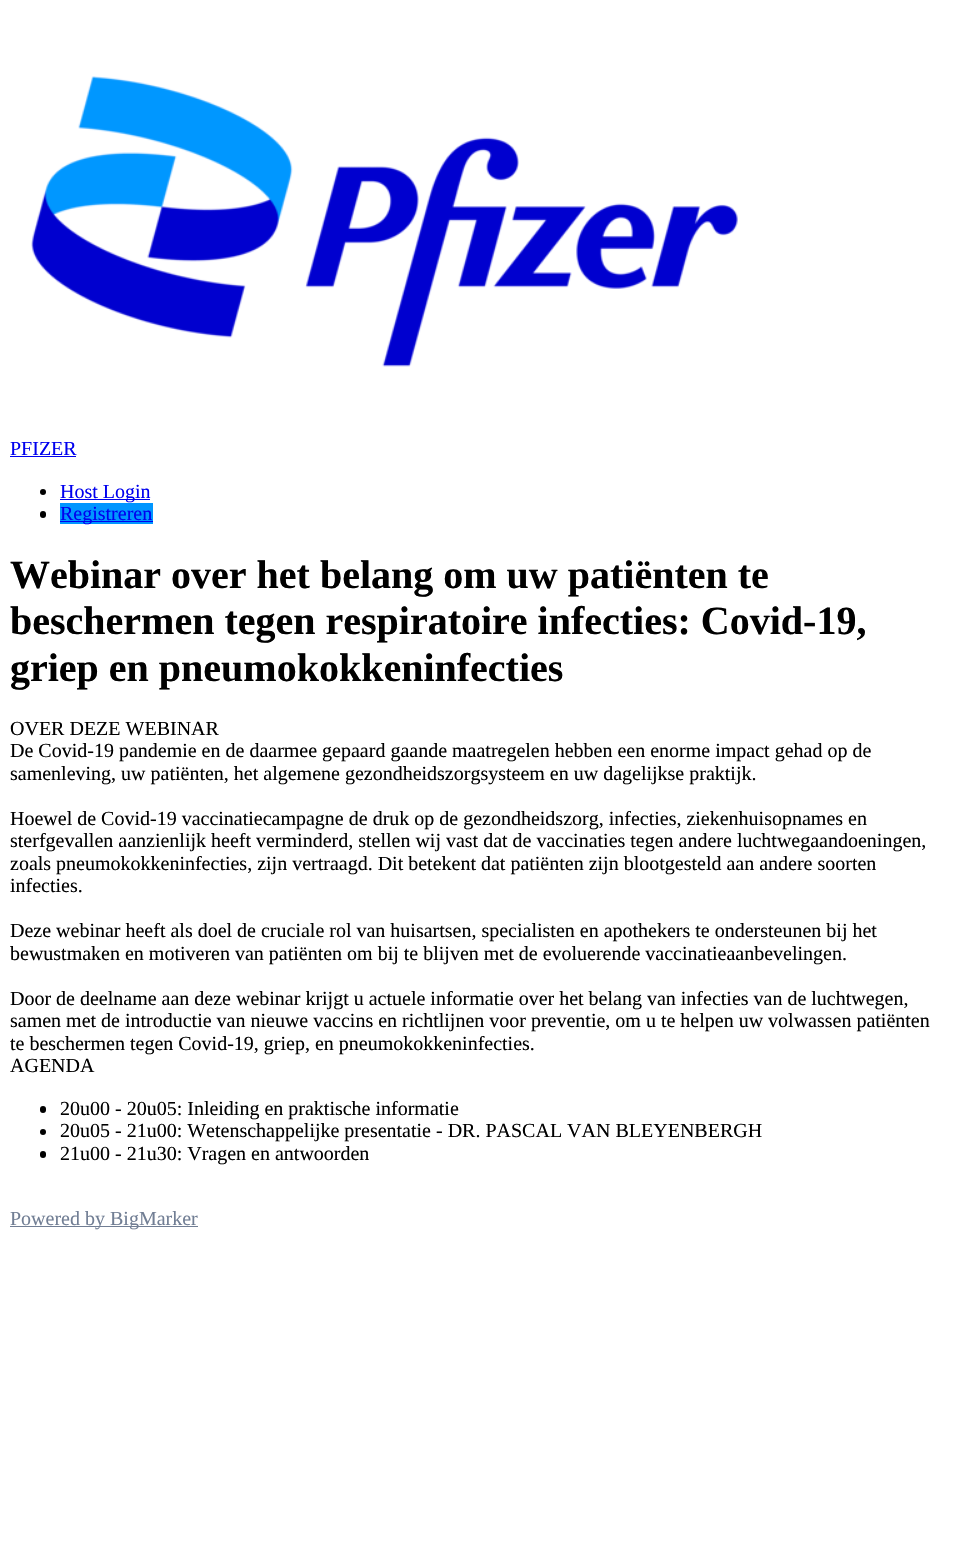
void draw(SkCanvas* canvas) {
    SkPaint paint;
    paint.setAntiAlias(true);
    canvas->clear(0xFFFFFFFF);
    canvas->drawImageRect(SkImages::DeferredFromEncodedData(SkData::MakeFromFileName("img1.png")), SkRect::MakeXYWH(31, 76, 707, 291), SkSamplingOptions());
    SkFont font1(fontMgr->matchFamilyStyle("Liberation Serif", SkFontStyle::Normal()), 20);
    font1.setSubpixel(true);
    paint.setColor(0xFF0000EE);
    canvas->drawString("PFIZER", 10, 455, font1, paint);
    canvas->drawRect(SkRect::MakeXYWH(10, 456, 66, 1), paint);
    paint.setColor(0xFF000000);
    canvas->drawCircle(43, 492, 3, paint);
    paint.setColor(0xFF0000EE);
    canvas->drawRect(SkRect::MakeXYWH(60, 499, 90, 1), paint);
    canvas->drawString("Host Login", 60, 498, font1, paint);
    paint.setColor(0xFF000000);
    canvas->drawRoundRect(SkRect::MakeXYWH(40, 511, 6, 7), 3, 3, paint);
    paint.setColor(0xFF0096FF);
    canvas->drawRect(SkRect::MakeXYWH(60, 503, 93, 21), paint);
    paint.setColor(0xFF0000EE);
    canvas->drawRect(SkRect::MakeXYWH(60, 521, 93, 1), paint);
    canvas->drawString("Registreren", 60, 520, font1, paint);
    SkFont font2(fontMgr->matchFamilyStyle("Liberation Serif", SkFontStyle::Bold()), 40);
    font2.setSubpixel(true);
    paint.setColor(0xFF000000);
    canvas->drawString("Webinar over het belang om uw patiënten te", 10, 588, font2, paint);
    canvas->drawString("beschermen tegen respiratoire infecties: Covid-19,", 10, 634, font2, paint);
    canvas->drawString("griep en pneumokokkeninfecties", 10, 681, font2, paint);
    canvas->drawString("OVER DEZE WEBINAR", 10, 735, font1, paint);
    canvas->drawString("De Covid-19 pandemie en de daarmee gepaard gaande maatregelen hebben een enorme impact gehad op de", 10, 757, font1, paint);
    canvas->drawString("samenleving, uw patiënten, het algemene gezondheidszorgsysteem en uw dagelijkse praktijk.", 10, 780, font1, paint);
    canvas->drawString("Hoewel de Covid-19 vaccinatiecampagne de druk op de gezondheidszorg, infecties, ziekenhuisopnames en", 10, 825, font1, paint);
    canvas->drawString("sterfgevallen aanzienlijk heeft verminderd, stellen wij vast dat de vaccinaties tegen andere luchtwegaandoeningen,", 10, 847, font1, paint);
    canvas->drawString("zoals pneumokokkeninfecties, zijn vertraagd. Dit betekent dat patiënten zijn blootgesteld aan andere soorten", 10, 870, font1, paint);
    canvas->drawString("infecties.", 10, 892, font1, paint);
    canvas->drawString("Deze webinar heeft als doel de cruciale rol van huisartsen, specialisten en apothekers te ondersteunen bij het", 10, 937, font1, paint);
    canvas->drawString("bewustmaken en motiveren van patiënten om bij te blijven met de evoluerende vaccinatieaanbevelingen.", 10, 960, font1, paint);
    canvas->drawString("Door de deelname aan deze webinar krijgt u actuele informatie over het belang van infecties van de luchtwegen,", 10, 1005, font1, paint);
    canvas->drawString("samen met de introductie van nieuwe vaccins en richtlijnen voor preventie, om u te helpen uw volwassen patiënten", 10, 1027, font1, paint);
    canvas->drawString("te beschermen tegen Covid-19, griep, en pneumokokkeninfecties.", 10, 1050, font1, paint);
    canvas->drawString("AGENDA", 10, 1072, font1, paint);
    canvas->drawRoundRect(SkRect::MakeXYWH(40, 1106, 6, 7), 3, 3, paint);
    canvas->drawString("20u00 - 20u05: Inleiding en praktische informatie", 60, 1115, font1, paint);
    canvas->drawCircle(43, 1132, 3, paint);
    canvas->drawString("20u05 - 21u00: Wetenschappelijke presentatie - DR. PASCAL VAN BLEYENBERGH", 60, 1137, font1, paint);
    canvas->drawRoundRect(SkRect::MakeXYWH(40, 1151, 6, 7), 3, 3, paint);
    canvas->drawString("21u00 - 21u30: Vragen en antwoorden", 60, 1160, font1, paint);
    paint.setColor(0xFF717E94);
    canvas->drawRect(SkRect::MakeXYWH(10, 1226, 188, 1), paint);
    canvas->drawString("Powered by BigMarker", 10, 1225, font1, paint);
}
